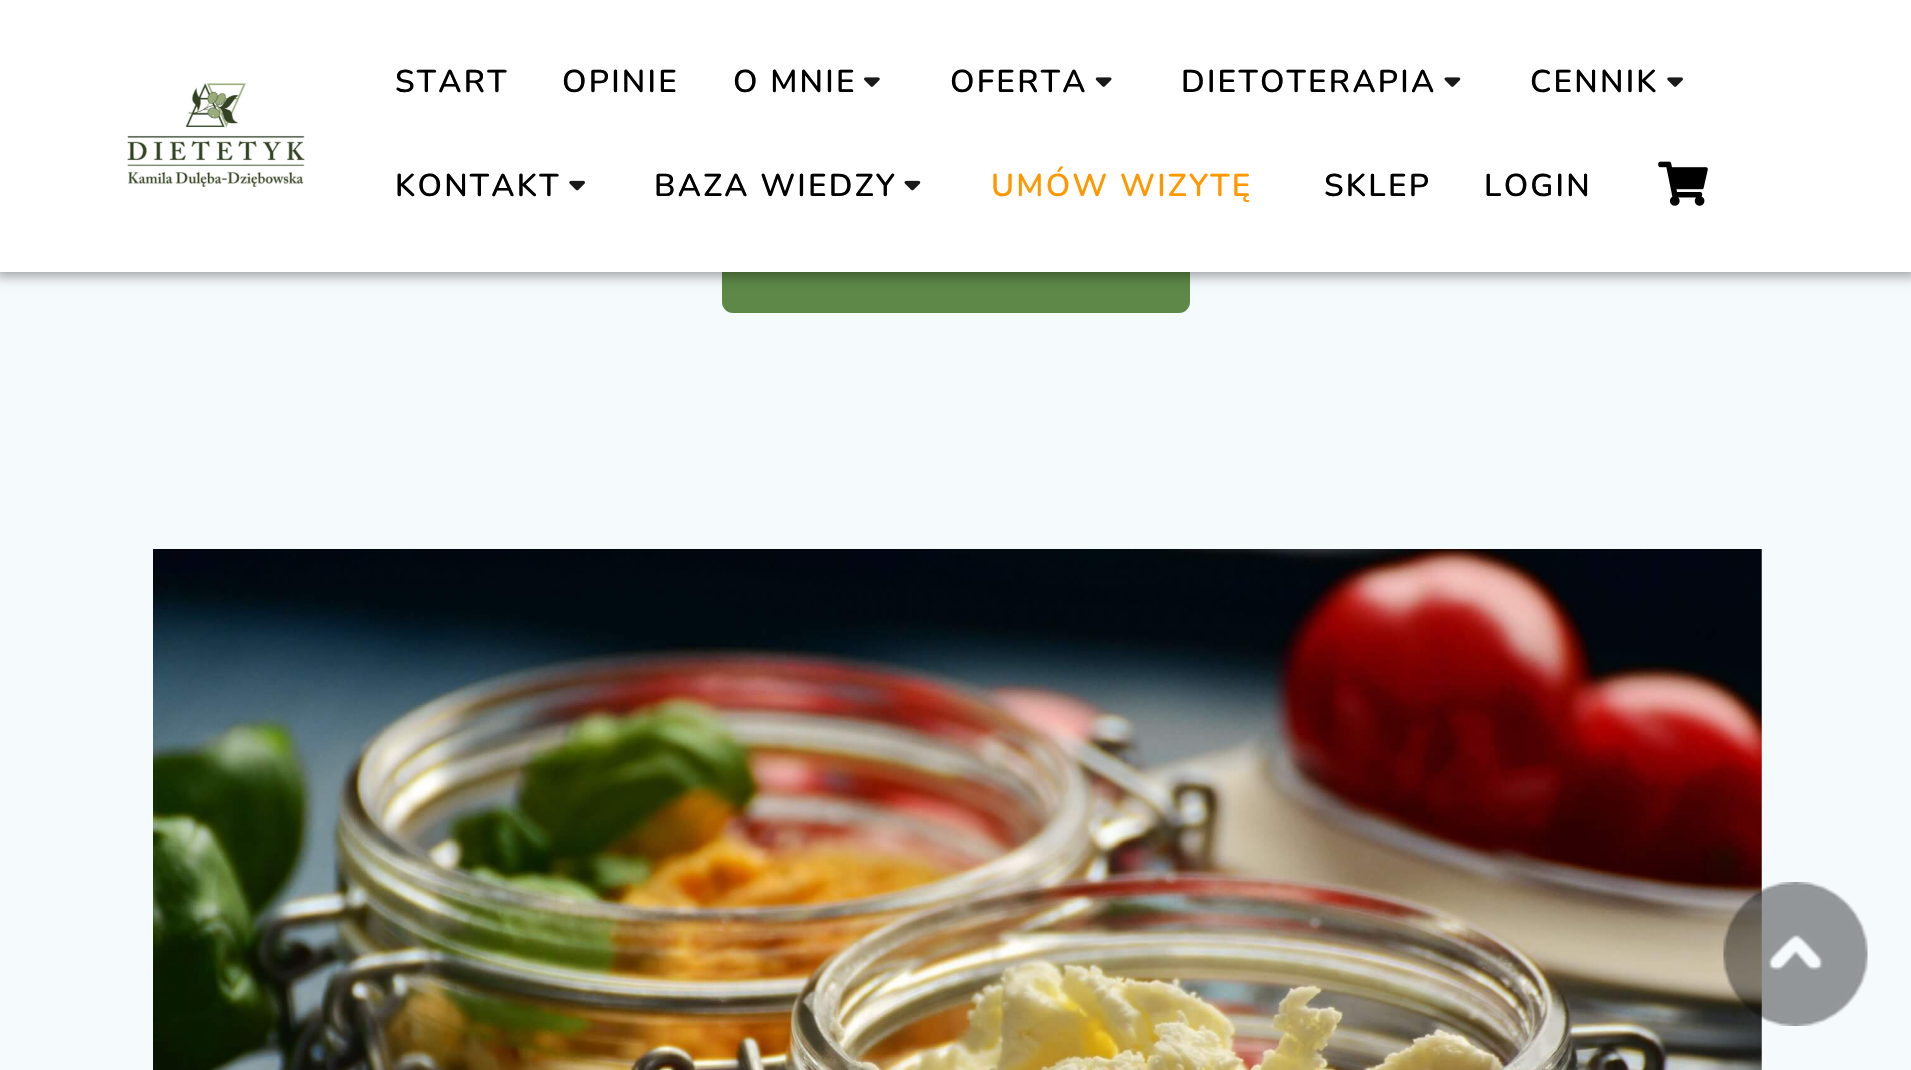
void draw(SkCanvas* canvas) {
    SkPaint paint;
    paint.setAntiAlias(true);
    auto spacedText = [&](const char* s, float x, float y, const SkFont& font, const SkPaint& ink, float letter, float word) {
        std::vector<SkGlyphID> glyphs(font.countText(s, strlen(s), SkTextEncoding::kUTF8));
        std::vector<float> xs(glyphs.size());
        font.textToGlyphs(s, strlen(s), SkTextEncoding::kUTF8, glyphs);
        font.getXPos(glyphs, xs, x);
        float extra = 0;
        for (size_t i = 0; i < glyphs.size(); i++) {
            xs[i] += extra;
            extra += letter + word * (glyphs[i] == font.unicharToGlyph(' '));
        }
        canvas->drawTextBlob(SkTextBlob::MakeFromPosHGlyphs(glyphs, xs, y, font), 0, 0, ink);
    };
    canvas->clear(0xFFF5FAFD);
    paint.setColor(0xFF5D8847);
    canvas->drawRoundRect(SkRect::MakeXYWH(724.5f, 225.5f, 463, 85), 8.5f, 8.5f, paint);
    paint.setStyle(SkPaint::kStroke_Style);
    paint.setStrokeWidth(5);
    canvas->drawRoundRect(SkRect::MakeXYWH(724.5f, 225.5f, 463, 85), 8.5f, 8.5f, paint);
    paint.setStyle(SkPaint::kFill_Style);
    paint.setColor(0x54000000);
    paint.setMaskFilter(SkMaskFilter::MakeBlur(kNormal_SkBlurStyle, 5.5f));
    canvas->drawRect(SkRect::MakeXYWH(-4, -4, 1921, 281), paint);
    paint.setMaskFilter(nullptr);
    paint.setColor(0xFFFFFFFF);
    canvas->drawRect(SkRect::MakeXYWH(0, 0, 1911, 272), paint);
    canvas->drawImageRect(SkImages::DeferredFromEncodedData(SkData::MakeFromFileName("img1.png")), SkRect::MakeXYWH(127, 83, 178, 105), SkSamplingOptions());
    SkFont font1(fontMgr->matchFamilyStyle("Nunito", SkFontStyle(600, SkFontStyle::kNormal_Width, SkFontStyle::kUpright_Slant)), 31.5f);
    font1.setSubpixel(true);
    paint.setColor(0xFF000000);
    spacedText("START", 395, 92, font1, paint, 2.25f, 0);
    spacedText("OPINIE", 562, 92, font1, paint, 2.25f, 0);
    spacedText("O MNIE", 733, 92, font1, paint, 2.25f, 0);
    canvas->drawImageRect(SkImages::DeferredFromEncodedData(SkData::MakeFromFileName("img2.png")), SkRect::MakeXYWH(864, 77, 16, 10), SkSamplingOptions());
    spacedText("OFERTA", 950, 92, font1, paint, 2.25f, 0);
    canvas->drawImageRect(SkImages::DeferredFromEncodedData(SkData::MakeFromFileName("img3.png")), SkRect::MakeXYWH(1095, 77, 17, 10), SkSamplingOptions());
    spacedText("DIETOTERAPIA", 1181, 92, font1, paint, 2.25f, 0);
    canvas->drawImageRect(SkImages::DeferredFromEncodedData(SkData::MakeFromFileName("img4.png")), SkRect::MakeXYWH(1444, 77, 17, 10), SkSamplingOptions());
    spacedText("CENNIK", 1530, 92, font1, paint, 2.25f, 0);
    canvas->drawImageRect(SkImages::DeferredFromEncodedData(SkData::MakeFromFileName("img5.png")), SkRect::MakeXYWH(1667, 77, 16, 10), SkSamplingOptions());
    spacedText("KONTAKT", 395, 196, font1, paint, 2.25f, 0);
    canvas->drawImageRect(SkImages::DeferredFromEncodedData(SkData::MakeFromFileName("img6.png")), SkRect::MakeXYWH(569, 180, 16, 11), SkSamplingOptions());
    spacedText("BAZA WIEDZY", 654, 196, font1, paint, 2.25f, 0);
    canvas->drawImageRect(SkImages::DeferredFromEncodedData(SkData::MakeFromFileName("img7.png")), SkRect::MakeXYWH(904, 180, 17, 11), SkSamplingOptions());
    paint.setColor(0xFFFF9800);
    spacedText("UMÓW WIZYTĘ", 991, 196, font1, paint, 2.25f, 0);
    paint.setColor(0xFF000000);
    spacedText("SKLEP", 1324, 196, font1, paint, 2.25f, 0);
    spacedText("LOGIN", 1484, 196, font1, paint, 2.25f, 0);
    canvas->drawImageRect(SkImages::DeferredFromEncodedData(SkData::MakeFromFileName("img8.png")), SkRect::MakeXYWH(1658, 161, 50, 45), SkSamplingOptions());
    canvas->drawImageRect(SkImages::DeferredFromEncodedData(SkData::MakeFromFileName("img9.png")), SkRect::MakeXYWH(153, 549, 1609, 521), SkSamplingOptions());
    canvas->drawImageRect(SkImages::DeferredFromEncodedData(SkData::MakeFromFileName("img10.png")), SkRect::MakeXYWH(1723, 882, 145, 144), SkSamplingOptions());
}
